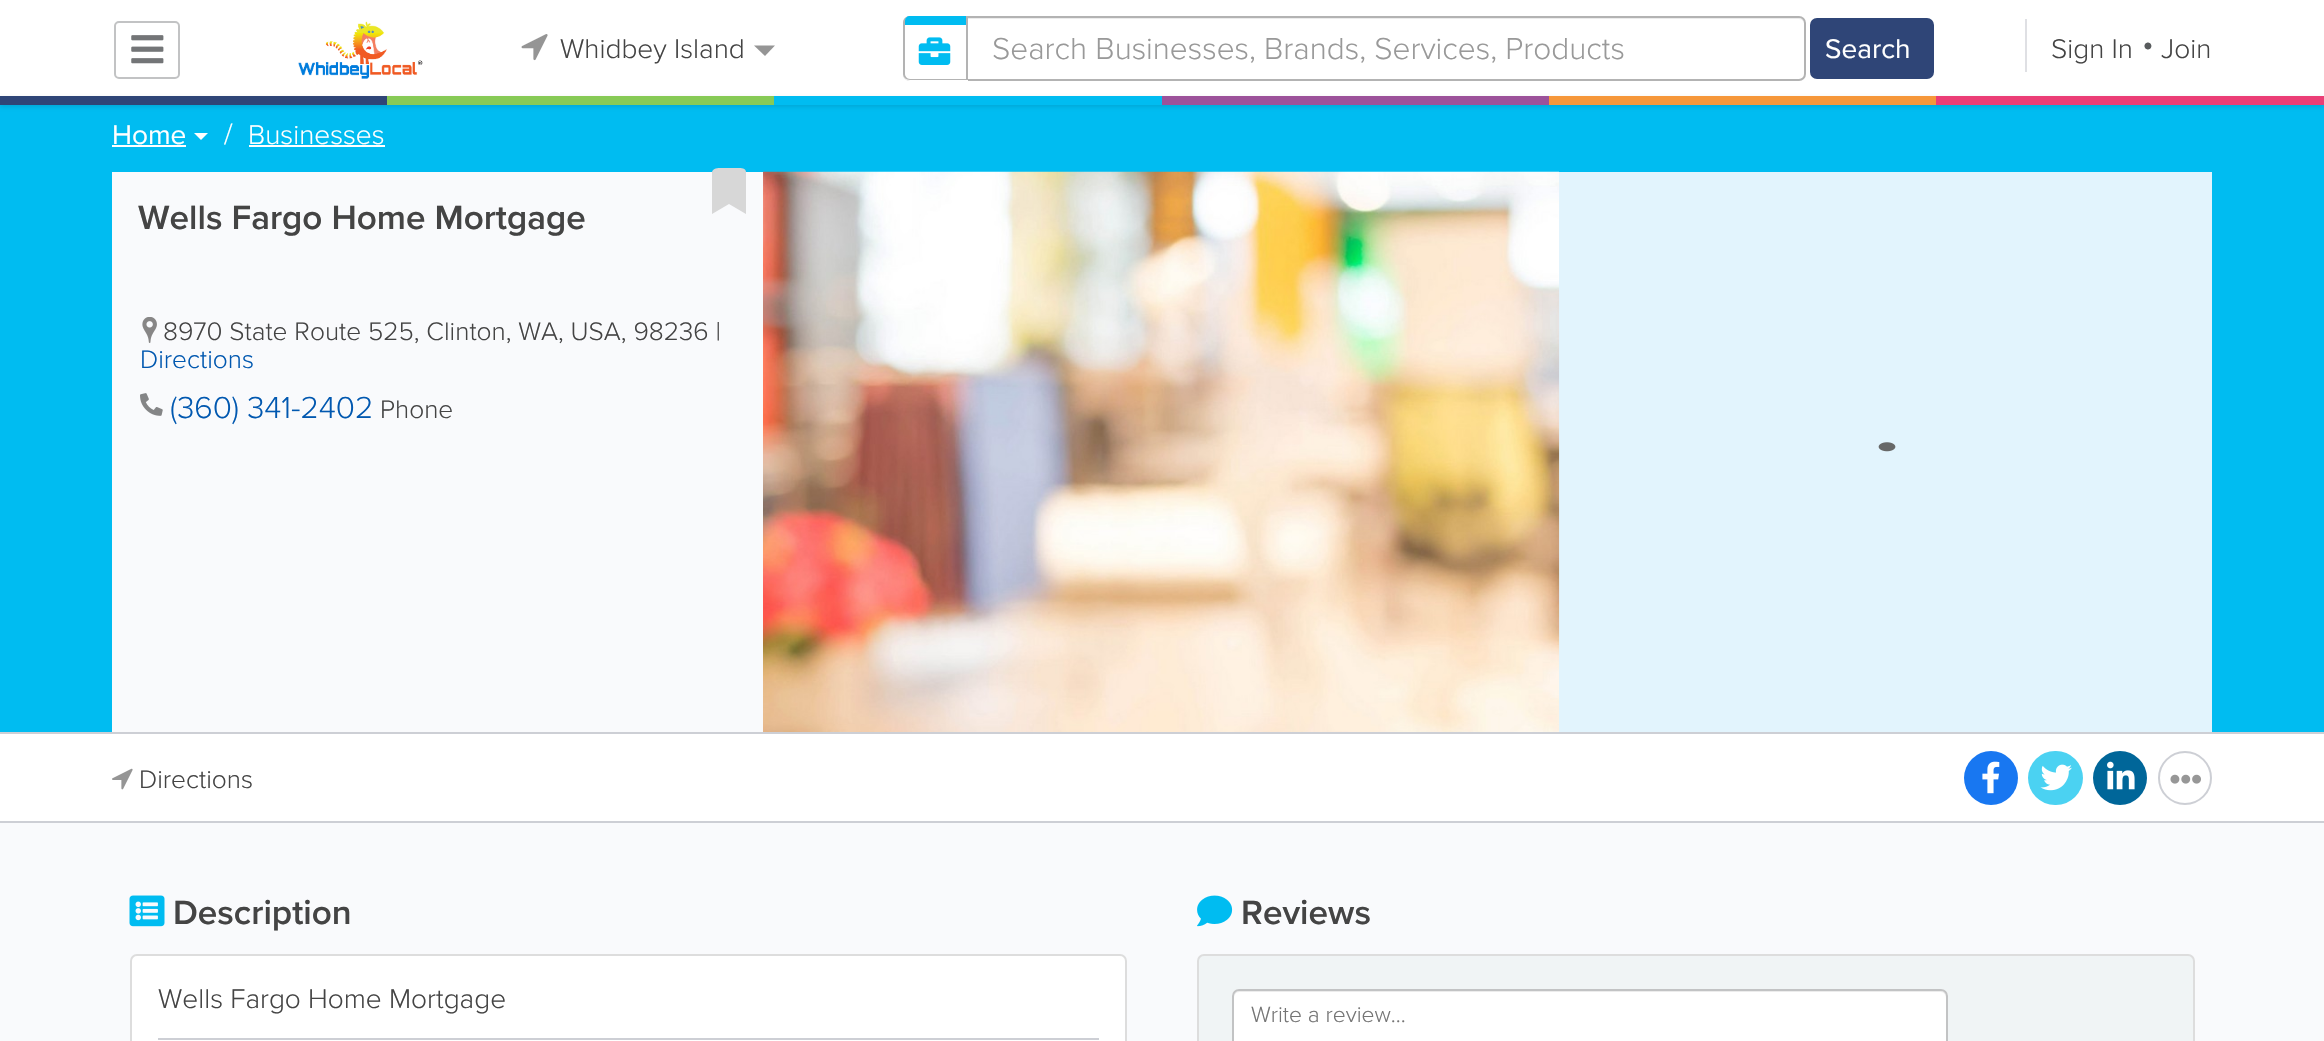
void draw(SkCanvas* canvas) {
    SkPaint paint;
    paint.setAntiAlias(true);
    canvas->clear(0xFFF9FAFC);
    paint.setColor(0xFFFFFFFF);
    canvas->drawRect(SkRect::MakeXYWH(0, 0, 2324, 96), paint);
    paint.setStyle(SkPaint::kStroke_Style);
    paint.setStrokeWidth(2);
    paint.setColor(0xFFC2C3C4);
    canvas->drawRoundRect(SkRect::MakeXYWH(115, 22, 64, 56), 4, 4, paint);
    canvas->drawImageRect(SkImages::DeferredFromEncodedData(SkData::MakeFromFileName("img1.png")), SkRect::MakeXYWH(131, 35, 33, 29), SkSamplingOptions());
    canvas->drawImageRect(SkImages::DeferredFromEncodedData(SkData::MakeFromFileName("img2.png")), SkRect::MakeXYWH(298, 21, 125, 58), SkSamplingOptions());
    canvas->drawImageRect(SkImages::DeferredFromEncodedData(SkData::MakeFromFileName("img3.png")), SkRect::MakeXYWH(521, 34, 27, 27), SkSamplingOptions());
    SkFont font1(fontMgr->matchFamilyStyle("Proxima Nova", SkFontStyle(300, SkFontStyle::kNormal_Width, SkFontStyle::kUpright_Slant)), 28);
    font1.setSubpixel(true);
    paint.setStyle(SkPaint::kFill_Style);
    paint.setColor(0xFF444444);
    canvas->drawString("Whidbey Island", 560, 58, font1, paint);
    paint.setColor(0xFF959595);
    canvas->drawPath(SkPathBuilder().moveTo(754, 45.5f).lineTo(775, 45.5f).lineTo(765, 56).close().detach(), paint);
    paint.setColor(0xFFECECEC);
    canvas->drawPath(SkPathBuilder().moveTo(910, 19).lineTo(1799, 19).cubicTo(1802, 19, 1804, 22, 1804, 24).cubicTo(1804, 21, 1802, 18, 1799, 18).lineTo(910, 18).cubicTo(907, 18, 905, 21, 905, 24).cubicTo(905, 22, 907, 19, 910, 19).close().detach(), paint);
    paint.setStyle(SkPaint::kStroke_Style);
    paint.setColor(0xFFB3B3B3);
    canvas->drawRoundRect(SkRect::MakeXYWH(904, 17, 901, 63), 6, 6, paint);
    paint.setStyle(SkPaint::kFill_Style);
    paint.setColor(0xFFFFFFFF);
    canvas->drawPath(SkPathBuilder().moveTo(910, 16).lineTo(968, 16).lineTo(968, 81).lineTo(910, 81).cubicTo(906, 81, 903, 78, 903, 74).lineTo(903, 23).cubicTo(903, 19, 906, 16, 910, 16).close().detach(), paint);
    paint.setColor(0xFFB3B3B3);
    canvas->drawPath(SkPathBuilder(SkPathFillType::kEvenOdd).moveTo(910, 16).lineTo(968, 16).lineTo(968, 80).lineTo(910, 80).cubicTo(906, 80, 903, 77, 903, 74).lineTo(903, 23).cubicTo(903, 19, 906, 16, 910, 16).close().moveTo(910, 16).lineTo(966, 16).lineTo(966, 79).lineTo(910, 79).cubicTo(907, 79, 905, 76, 905, 74).lineTo(905, 23).cubicTo(905, 19, 907, 16, 910, 16).close().detach(), paint);
    paint.setColor(0xFF00BCF1);
    canvas->drawPath(SkPathBuilder().moveTo(910, 16).lineTo(966, 16).lineTo(966, 25).lineTo(905, 25).lineTo(905, 21).cubicTo(905, 18, 907, 16, 910, 16).close().detach(), paint);
    canvas->drawImageRect(SkImages::DeferredFromEncodedData(SkData::MakeFromFileName("img4.png")), SkRect::MakeXYWH(918, 37, 33, 28), SkSamplingOptions());
    SkFont font2(fontMgr->matchFamilyStyle("Proxima Nova", SkFontStyle(300, SkFontStyle::kNormal_Width, SkFontStyle::kUpright_Slant)), 31.5f);
    font2.setSubpixel(true);
    paint.setColor(0xFF999999);
    canvas->drawString("Search Businesses, Brands, Services, Products", 992, 59, font2, paint);
    paint.setColor(0xFF2F4577);
    canvas->drawRoundRect(SkRect::MakeXYWH(1811, 19, 122, 59), 6, 6, paint);
    paint.setStyle(SkPaint::kStroke_Style);
    canvas->drawRoundRect(SkRect::MakeXYWH(1811, 19, 122, 59), 6, 6, paint);
    SkFont font3(fontMgr->matchFamilyStyle("Proxima Nova", SkFontStyle::Normal()), 28);
    font3.setSubpixel(true);
    paint.setStyle(SkPaint::kFill_Style);
    paint.setColor(0xFFFFFFFF);
    canvas->drawString("Search", 1825, 58, font3, paint);
    paint.setColor(0xFFDFE0E4);
    canvas->drawRect(SkRect::MakeXYWH(2025, 19, 2, 53), paint);
    paint.setColor(0xFF444444);
    canvas->drawString("Sign In", 2051, 58, font1, paint);
    SkFont font4(fontMgr->matchFamilyStyle("Proxima Nova", SkFontStyle(300, SkFontStyle::kNormal_Width, SkFontStyle::kUpright_Slant)), 33);
    font4.setSubpixel(true);
    paint.setColor(0xFF585B5D);
    canvas->drawString("•", 2142, 54, font4, paint);
    paint.setColor(0xFF444444);
    canvas->drawString("Join", 2161, 58, font1, paint);
    paint.setColor(0xFF00BCF1);
    canvas->drawRect(SkRect::MakeXYWH(0, 105, 2324, 627), paint);
    paint.setColor(0x1A000000);
    paint.setMaskFilter(SkMaskFilter::MakeBlur(kNormal_SkBlurStyle, 2));
    canvas->drawRect(SkRect::MakeXYWH(0, 98, 2324, 9), paint);
    paint.setMaskFilter(nullptr);
    paint.setColor(0xFFEB3E76);
    canvas->drawRect(SkRect::MakeXYWH(1936, 96, 388, 9), paint);
    paint.setColor(0xFF2F4577);
    canvas->drawRect(SkRect::MakeXYWH(0, 96, 387, 9), paint);
    paint.setColor(0xFF87CA56);
    canvas->drawRect(SkRect::MakeXYWH(387, 96, 387, 9), paint);
    paint.setColor(0xFF00BCF1);
    canvas->drawRect(SkRect::MakeXYWH(774, 96, 388, 9), paint);
    paint.setColor(0xFF9C529A);
    canvas->drawRect(SkRect::MakeXYWH(1162, 96, 387, 9), paint);
    paint.setColor(0xFFF6973A);
    canvas->drawRect(SkRect::MakeXYWH(1549, 96, 387, 9), paint);
    paint.setColor(0xFFFFFFFF);
    canvas->drawString("Home", 112, 144, font3, paint);
    canvas->drawRect(SkRect::MakeXYWH(112, 145, 74, 2), paint);
    canvas->drawPath(SkPathBuilder().moveTo(194, 133).lineTo(208, 133).lineTo(201, 140).close().detach(), paint);
    SkFont font5(fontMgr->matchFamilyStyle("Proxima Nova", SkFontStyle(300, SkFontStyle::kNormal_Width, SkFontStyle::kUpright_Slant)), 30);
    font5.setSubpixel(true);
    canvas->drawString("/", 224, 144, font5, paint);
    canvas->drawString("Businesses", 248, 144, font1, paint);
    canvas->drawRect(SkRect::MakeXYWH(249, 145, 136, 2), paint);
    paint.setColor(0xFFF9FAFC);
    canvas->drawRect(SkRect::MakeXYWH(112, 172, 651, 560), paint);
    paint.setColor(0xFFD7D7D7);
    canvas->drawPath(SkPathBuilder().moveTo(712, 214).lineTo(712, 172).cubicTo(713, 168, 718, 168, 721, 168).lineTo(738, 168).cubicTo(741, 168, 746, 168, 746, 172).lineTo(746, 214).lineTo(729, 204).close().detach(), paint);
    SkFont font6(fontMgr->matchFamilyStyle("Proxima Nova", SkFontStyle(600, SkFontStyle::kNormal_Width, SkFontStyle::kUpright_Slant)), 35);
    font6.setSubpixel(true);
    paint.setColor(0xFF444444);
    canvas->drawString("Wells Fargo Home Mortgage", 138, 229, font6, paint);
    canvas->drawImageRect(SkImages::DeferredFromEncodedData(SkData::MakeFromFileName("img5.png")), SkRect::MakeXYWH(142, 317, 15, 26), SkSamplingOptions());
    SkFont font7(fontMgr->matchFamilyStyle("Proxima Nova", SkFontStyle(300, SkFontStyle::kNormal_Width, SkFontStyle::kUpright_Slant)), 26.25f);
    font7.setSubpixel(true);
    canvas->drawString("8970 State Route 525, Clinton, WA, USA, 98236 |", 163, 340, font7, paint);
    paint.setColor(0xFF0158B0);
    canvas->drawString("Directions", 140, 368, font7, paint);
    canvas->drawImageRect(SkImages::DeferredFromEncodedData(SkData::MakeFromFileName("img6.png")), SkRect::MakeXYWH(140, 393, 23, 23), SkSamplingOptions());
    canvas->drawString("(360) 341-2402", 170, 418, font2, paint);
    paint.setColor(0xFF444444);
    canvas->drawString("Phone", 380, 418, font7, paint);
    paint.setColor(0xFFE2F4FD);
    canvas->drawRect(SkRect::MakeXYWH(1559, 172, 653, 560), paint);
    canvas->drawImageRect(SkImages::DeferredFromEncodedData(SkData::MakeFromFileName("img7.png")), SkRect::MakeXYWH(763, 171, 797, 561), SkSamplingOptions());
    canvas->drawImageRect(SkImages::DeferredFromEncodedData(SkData::MakeFromFileName("img8.png")), SkRect::MakeXYWH(1878, 442, 18, 10), SkSamplingOptions());
    paint.setColor(0xFFFFFFFF);
    canvas->drawRect(SkRect::MakeXYWH(0, 734, 2324, 87), paint);
    paint.setColor(0xFFCDCFD5);
    canvas->drawRect(SkRect::MakeXYWH(0, 732, 2324, 2), paint);
    canvas->drawRect(SkRect::MakeXYWH(0, 821, 2324, 2), paint);
    canvas->drawImageRect(SkImages::DeferredFromEncodedData(SkData::MakeFromFileName("img9.png")), SkRect::MakeXYWH(112, 768, 21, 22), SkSamplingOptions());
    paint.setColor(0xFF444444);
    canvas->drawString("Directions", 139, 788, font7, paint);
    paint.setColor(0xFF1877F1);
    canvas->drawCircle(1991, 778, 27, paint);
    canvas->drawImageRect(SkImages::DeferredFromEncodedData(SkData::MakeFromFileName("img10.png")), SkRect::MakeXYWH(1982, 761, 18, 33), SkSamplingOptions());
    paint.setColor(0xFF4BD2F2);
    canvas->drawRoundRect(SkRect::MakeXYWH(2028, 751, 55, 54), 27, 27, paint);
    canvas->drawImageRect(SkImages::DeferredFromEncodedData(SkData::MakeFromFileName("img11.png")), SkRect::MakeXYWH(2040, 764, 32, 27), SkSamplingOptions());
    paint.setColor(0xFF006699);
    canvas->drawCircle(2120, 778, 27, paint);
    canvas->drawImageRect(SkImages::DeferredFromEncodedData(SkData::MakeFromFileName("img12.png")), SkRect::MakeXYWH(2107, 761, 28, 29), SkSamplingOptions());
    paint.setStyle(SkPaint::kStroke_Style);
    paint.setColor(0xFFCDCFD5);
    canvas->drawCircle(2185, 778, 26, paint);
    canvas->drawImageRect(SkImages::DeferredFromEncodedData(SkData::MakeFromFileName("img13.png")), SkRect::MakeXYWH(2170, 774, 31, 10), SkSamplingOptions());
    canvas->drawImageRect(SkImages::DeferredFromEncodedData(SkData::MakeFromFileName("img14.png")), SkRect::MakeXYWH(129, 895, 36, 32), SkSamplingOptions());
    paint.setStyle(SkPaint::kFill_Style);
    paint.setColor(0xFF444444);
    canvas->drawString("Description", 173, 924, font6, paint);
    paint.setColor(0xFFFFFFFF);
    canvas->drawRoundRect(SkRect::MakeXYWH(131, 955, 995, 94), 6, 6, paint);
    paint.setStyle(SkPaint::kStroke_Style);
    paint.setColor(0xFFDDDDDD);
    canvas->drawRoundRect(SkRect::MakeXYWH(131, 955, 995, 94), 6, 6, paint);
    paint.setStyle(SkPaint::kFill_Style);
    paint.setColor(0xFF444444);
    canvas->drawString("Wells Fargo Home Mortgage", 158, 1008, font1, paint);
    paint.setColor(0xFFCDCFD5);
    canvas->drawRect(SkRect::MakeXYWH(158, 1038, 941, 2), paint);
    canvas->drawImageRect(SkImages::DeferredFromEncodedData(SkData::MakeFromFileName("img15.png")), SkRect::MakeXYWH(1197, 895, 36, 32), SkSamplingOptions());
    paint.setColor(0xFF444444);
    canvas->drawString("Reviews", 1241, 924, font6, paint);
    paint.setColor(0xFFF0F4F5);
    canvas->drawRoundRect(SkRect::MakeXYWH(1198, 955, 996, 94), 6, 6, paint);
    paint.setStyle(SkPaint::kStroke_Style);
    paint.setColor(0xFFDDDDDD);
    canvas->drawRoundRect(SkRect::MakeXYWH(1198, 955, 996, 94), 6, 6, paint);
    paint.setStyle(SkPaint::kFill_Style);
    paint.setColor(0xFFFFFFFF);
    canvas->drawRoundRect(SkRect::MakeXYWH(1232, 989, 716, 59), 7, 7, paint);
    paint.setColor(0xFFECECEC);
    canvas->drawPath(SkPathBuilder().moveTo(1239, 992).lineTo(1941, 992).cubicTo(1944, 992, 1946, 995, 1946, 998).lineTo(1946, 996).cubicTo(1946, 993, 1944, 991, 1941, 991).lineTo(1239, 991).cubicTo(1236, 991, 1234, 993, 1234, 996).lineTo(1234, 998).cubicTo(1234, 995, 1236, 992, 1239, 992).close().detach(), paint);
    paint.setStyle(SkPaint::kStroke_Style);
    paint.setColor(0xFFC2C3C4);
    canvas->drawRoundRect(SkRect::MakeXYWH(1233, 990, 714, 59), 6, 6, paint);
    SkFont font8(fontMgr->matchFamilyStyle("Proxima Nova", SkFontStyle(300, SkFontStyle::kNormal_Width, SkFontStyle::kUpright_Slant)), 22.75f);
    font8.setSubpixel(true);
    paint.setStyle(SkPaint::kFill_Style);
    paint.setColor(0xFF757575);
    canvas->drawString("Write a review...", 1251, 1022, font8, paint);
}
